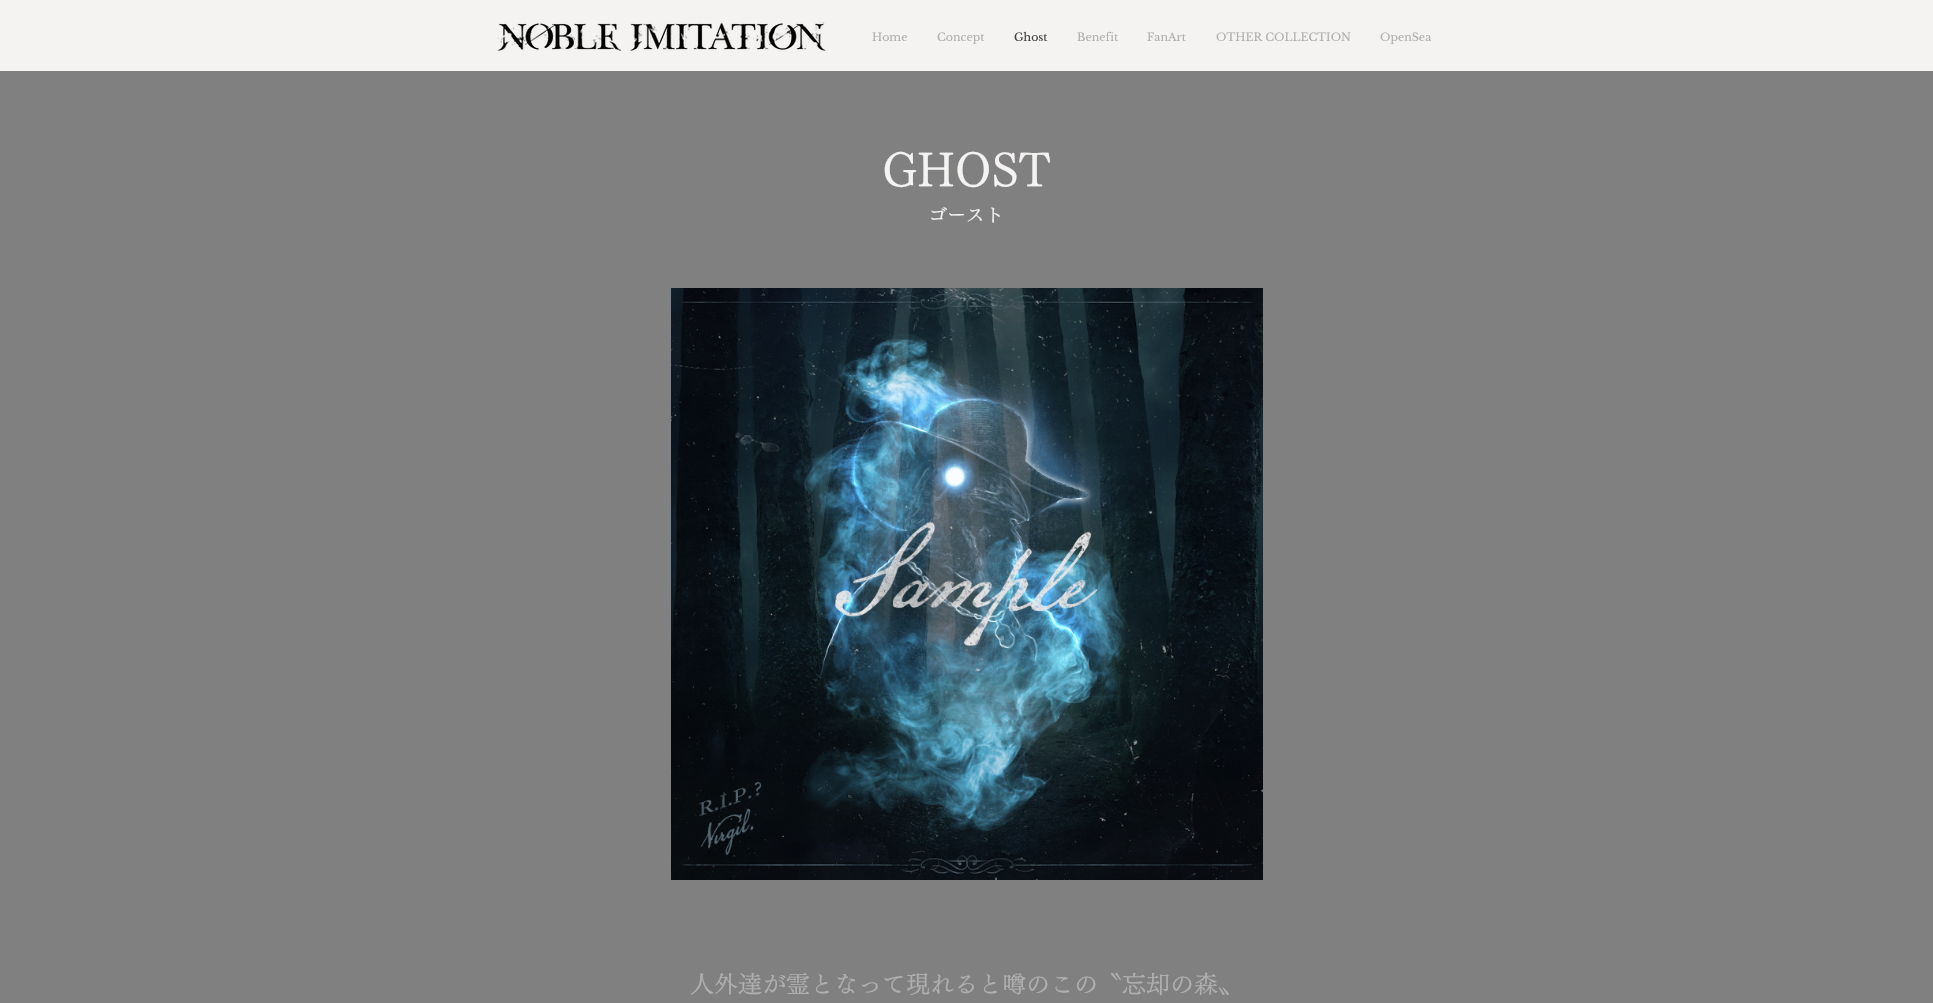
void draw(SkCanvas* canvas) {
    SkPaint paint;
    paint.setAntiAlias(true);
    canvas->clear(0xFF808080);
    paint.setColor(0xFFF4F3F2);
    canvas->drawRect(SkRect::MakeXYWH(0, 0, 1933, 71), paint);
    canvas->drawImageRect(SkImages::DeferredFromEncodedData(SkData::MakeFromFileName("img1.png")), SkRect::MakeXYWH(497, 21, 329, 31), SkSamplingOptions());
    SkFont font1(fontMgr->matchFamilyStyle("Libre Baskerville", SkFontStyle::Normal()), 11);
    font1.setSubpixel(true);
    paint.setColor(0xFFAFAFAF);
    canvas->drawString("Home", 872, 41, font1, paint);
    canvas->drawString("Concept", 937, 41, font1, paint);
    paint.setColor(0xFF414141);
    canvas->drawString("Ghost", 1014, 41, font1, paint);
    paint.setColor(0xFFAFAFAF);
    canvas->drawString("Benefit", 1077, 41, font1, paint);
    canvas->drawString("FanArt", 1147, 41, font1, paint);
    canvas->drawString("OTHER COLLECTION", 1216, 41, font1, paint);
    canvas->drawString("OpenSea", 1380, 41, font1, paint);
    SkFont font2(fontMgr->matchFamilyStyle("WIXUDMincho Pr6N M", SkFontStyle(500, SkFontStyle::kNormal_Width, SkFontStyle::kUpright_Slant)), 45);
    font2.setSubpixel(true);
    paint.setColor(0xFFF4F3F2);
    canvas->drawString("GHOST", 882, 187, font2, paint);
    SkFont font3(fontMgr->matchFamilyStyle("WIXUDMincho Pr6N M", SkFontStyle(500, SkFontStyle::kNormal_Width, SkFontStyle::kUpright_Slant)), 19);
    font3.setSubpixel(true);
    canvas->drawString("ゴースト", 928, 222, font3, paint);
    canvas->drawImageRect(SkImages::DeferredFromEncodedData(SkData::MakeFromFileName("img2.png")), SkRect::MakeXYWH(671, 288, 592, 592), SkSamplingOptions());
    SkFont font4(fontMgr->matchFamilyStyle("WIXUDMincho Pr6N M", SkFontStyle(500, SkFontStyle::kNormal_Width, SkFontStyle::kUpright_Slant)), 24);
    font4.setSubpixel(true);
    paint.setColor(0xFFAFAFAF);
    canvas->drawString("人外達が霊となって現れると噂のこの〝忘却の森〟", 690, 993, font4, paint);
}
